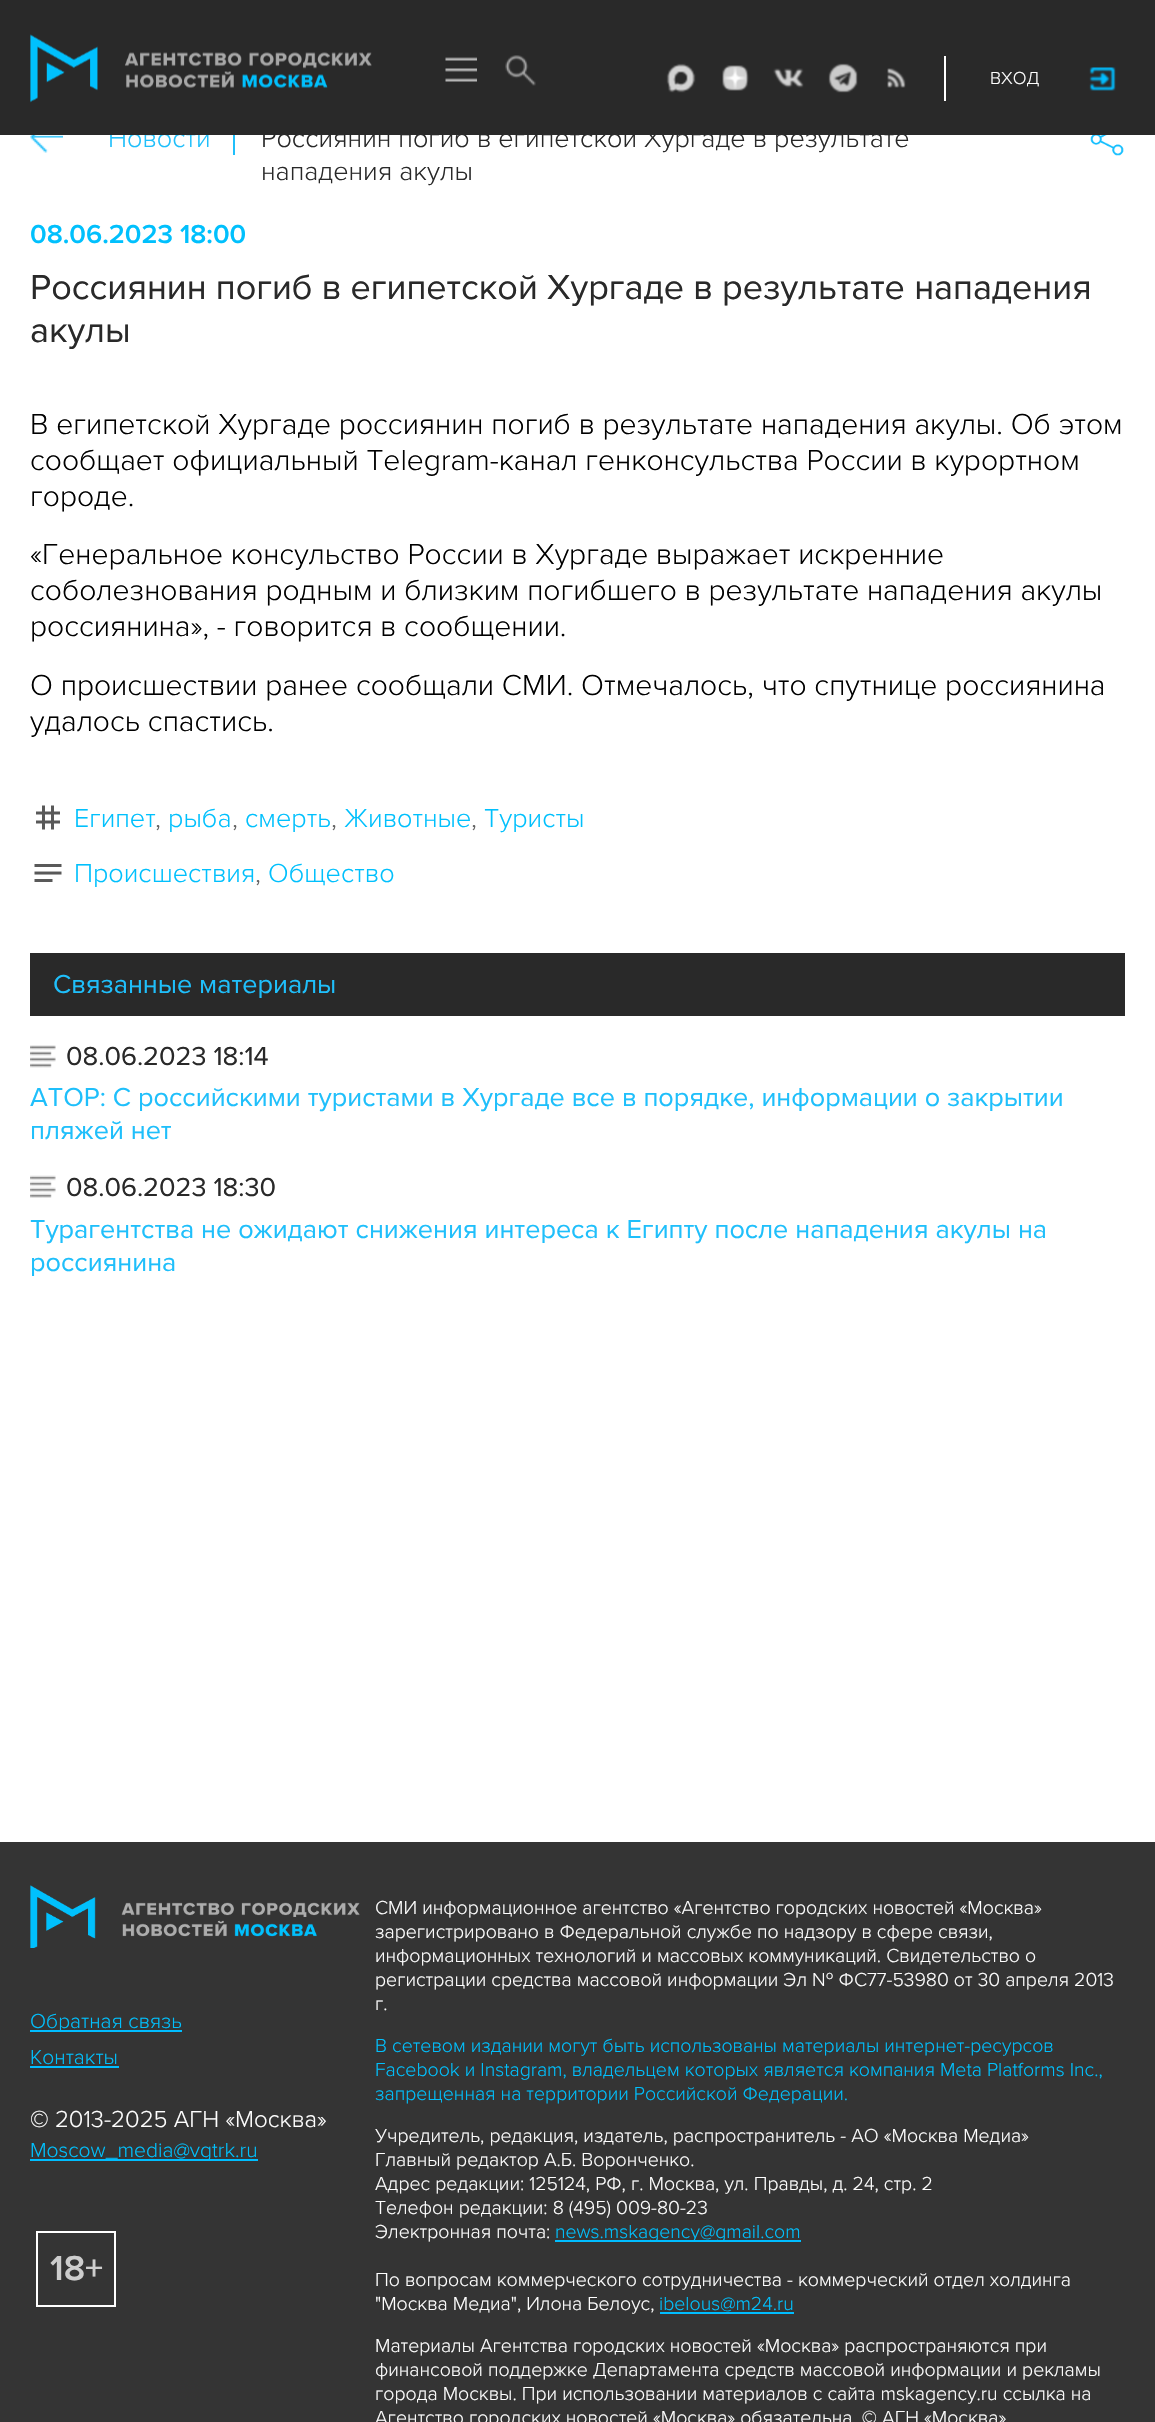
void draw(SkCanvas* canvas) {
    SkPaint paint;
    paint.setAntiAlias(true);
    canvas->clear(0xFFFFFFFF);
    SkFont font1(fontMgr->matchFamilyStyle("Proxima Nova", SkFontStyle(300, SkFontStyle::kNormal_Width, SkFontStyle::kUpright_Slant)), 27);
    font1.setSubpixel(true);
    paint.setColor(0xFF1FBFFB);
    canvas->drawString("Новости", 108, 147, font1, paint);
    paint.setColor(0xFF292929);
    canvas->drawRect(SkRect::MakeXYWH(0, 0, 1155, 135), paint);
    canvas->drawImageRect(SkImages::DeferredFromEncodedData(SkData::MakeFromFileName("img1.png")), SkRect::MakeXYWH(30, 34, 342, 69), SkSamplingOptions());
    canvas->drawImageRect(SkImages::DeferredFromEncodedData(SkData::MakeFromFileName("img2.png")), SkRect::MakeXYWH(445, 57, 32, 25), SkSamplingOptions());
    canvas->drawImageRect(SkImages::DeferredFromEncodedData(SkData::MakeFromFileName("img3.png")), SkRect::MakeXYWH(505, 55, 31, 31), SkSamplingOptions());
    paint.setColor(0xFFFFFFFF);
    canvas->drawRect(SkRect::MakeXYWH(944, 56, 2, 45), paint);
    canvas->drawImageRect(SkImages::DeferredFromEncodedData(SkData::MakeFromFileName("img4.png")), SkRect::MakeXYWH(666, 63, 30, 30), SkSamplingOptions());
    canvas->drawImageRect(SkImages::DeferredFromEncodedData(SkData::MakeFromFileName("img5.png")), SkRect::MakeXYWH(722, 65, 27, 26), SkSamplingOptions());
    canvas->drawImageRect(SkImages::DeferredFromEncodedData(SkData::MakeFromFileName("img6.png")), SkRect::MakeXYWH(773, 68, 31, 20), SkSamplingOptions());
    canvas->drawImageRect(SkImages::DeferredFromEncodedData(SkData::MakeFromFileName("img7.png")), SkRect::MakeXYWH(828, 63, 30, 30), SkSamplingOptions());
    canvas->drawImageRect(SkImages::DeferredFromEncodedData(SkData::MakeFromFileName("img8.png")), SkRect::MakeXYWH(887, 68, 19, 20), SkSamplingOptions());
    canvas->drawImageRect(SkImages::DeferredFromEncodedData(SkData::MakeFromFileName("img9.png")), SkRect::MakeXYWH(1089, 67, 27, 24), SkSamplingOptions());
    SkFont font2(fontMgr->matchFamilyStyle("Proxima Nova", SkFontStyle(300, SkFontStyle::kNormal_Width, SkFontStyle::kUpright_Slant)), 18);
    font2.setSubpixel(true);
    canvas->drawString("ВХОД", 990, 84, font2, paint);
    canvas->drawImageRect(SkImages::DeferredFromEncodedData(SkData::MakeFromFileName("img10.png")), SkRect::MakeXYWH(30, 135, 33, 18), SkSamplingOptions());
    paint.setColor(0xFF1FBFFB);
    canvas->drawRect(SkRect::MakeXYWH(233, 135, 2, 20), paint);
    paint.setColor(0xFF292929);
    canvas->drawString("Россиянин погиб в египетской Хургаде в результате", 261, 147, font1, paint);
    canvas->drawString("нападения акулы", 261, 180, font1, paint);
    canvas->drawImageRect(SkImages::DeferredFromEncodedData(SkData::MakeFromFileName("img11.png")), SkRect::MakeXYWH(1090, 135, 34, 21), SkSamplingOptions());
    SkFont font3(fontMgr->matchFamilyStyle("Proxima Nova", SkFontStyle(600, SkFontStyle::kNormal_Width, SkFontStyle::kUpright_Slant)), 27);
    font3.setSubpixel(true);
    paint.setColor(0xFF00C0FD);
    canvas->drawString("08.06.2023 18:00", 30, 243, font3, paint);
    SkFont font4(fontMgr->matchFamilyStyle("Proxima Nova", SkFontStyle::Normal()), 36);
    font4.setSubpixel(true);
    paint.setColor(0xFF292929);
    canvas->drawString("Россиянин погиб в египетской Хургаде в результате нападения", 30, 299, font4, paint);
    canvas->drawString("акулы", 30, 342, font4, paint);
    SkFont font5(fontMgr->matchFamilyStyle("Proxima Nova", SkFontStyle(300, SkFontStyle::kNormal_Width, SkFontStyle::kUpright_Slant)), 30);
    font5.setSubpixel(true);
    paint.setColor(0xFF000000);
    canvas->drawString("В египетской Хургаде россиянин погиб в результате нападения акулы. Об этом", 30, 434, font5, paint);
    canvas->drawString("сообщает официальный Telegram-канал генконсульства России в курортном", 30, 470, font5, paint);
    canvas->drawString("городе.", 30, 506, font5, paint);
    canvas->drawString("«Генеральное консульство России в Хургаде выражает искренние", 30, 564, font5, paint);
    canvas->drawString("соболезнования родным и близким погибшего в результате нападения акулы", 30, 600, font5, paint);
    canvas->drawString("россиянина», - говорится в сообщении.", 30, 636, font5, paint);
    canvas->drawString("О происшествии ранее сообщали СМИ. Отмечалось, что спутнице россиянина", 30, 695, font5, paint);
    canvas->drawString("удалось спастись.", 30, 731, font5, paint);
    canvas->drawImageRect(SkImages::DeferredFromEncodedData(SkData::MakeFromFileName("img12.png")), SkRect::MakeXYWH(36, 805, 24, 25), SkSamplingOptions());
    paint.setColor(0xFF00C0FD);
    canvas->drawString("Египет", 74, 827, font1, paint);
    paint.setColor(0xFF636363);
    canvas->drawString(",", 155, 827, font1, paint);
    paint.setColor(0xFF00C0FD);
    canvas->drawString("рыба", 168, 827, font1, paint);
    paint.setColor(0xFF636363);
    canvas->drawString(",", 232, 827, font1, paint);
    paint.setColor(0xFF00C0FD);
    canvas->drawString("смерть", 245, 827, font1, paint);
    paint.setColor(0xFF636363);
    canvas->drawString(",", 331, 827, font1, paint);
    paint.setColor(0xFF00C0FD);
    canvas->drawString("Животные", 344, 827, font1, paint);
    paint.setColor(0xFF636363);
    canvas->drawString(",", 471, 827, font1, paint);
    paint.setColor(0xFF00C0FD);
    canvas->drawString("Туристы", 484, 827, font1, paint);
    canvas->drawImageRect(SkImages::DeferredFromEncodedData(SkData::MakeFromFileName("img13.png")), SkRect::MakeXYWH(34, 864, 28, 18), SkSamplingOptions());
    canvas->drawString("Происшествия", 74, 882, font1, paint);
    paint.setColor(0xFF636363);
    canvas->drawString(",", 255, 882, font1, paint);
    paint.setColor(0xFF00C0FD);
    canvas->drawString("Общество", 268, 882, font1, paint);
    paint.setColor(0xFF292929);
    canvas->drawRect(SkRect::MakeXYWH(30, 953, 1095, 63), paint);
    SkFont font6(fontMgr->matchFamilyStyle("Proxima Nova", SkFontStyle::Normal()), 27);
    font6.setSubpixel(true);
    paint.setColor(0xFF1FBFFB);
    canvas->drawString("Связанные материалы", 53, 993, font6, paint);
    canvas->drawImageRect(SkImages::DeferredFromEncodedData(SkData::MakeFromFileName("img14.png")), SkRect::MakeXYWH(30, 1045, 26, 23), SkSamplingOptions());
    paint.setColor(0xFF292929);
    canvas->drawString("08.06.2023 18:14", 66, 1065, font6, paint);
    paint.setColor(0xFF1FBFFB);
    canvas->drawString("АТОР: С российскими туристами в Хургаде все в порядке, информации о закрытии", 30, 1106, font6, paint);
    canvas->drawString("пляжей нет", 30, 1139, font6, paint);
    canvas->drawImageRect(SkImages::DeferredFromEncodedData(SkData::MakeFromFileName("img15.png")), SkRect::MakeXYWH(30, 1175, 26, 23), SkSamplingOptions());
    paint.setColor(0xFF292929);
    canvas->drawString("08.06.2023 18:30", 66, 1196, font6, paint);
    paint.setColor(0xFF1FBFFB);
    canvas->drawString("Турагентства не ожидают снижения интереса к Египту после нападения акулы на", 30, 1238, font6, paint);
    canvas->drawString("россиянина", 30, 1271, font6, paint);
    paint.setColor(0xFF343434);
    canvas->drawRect(SkRect::MakeXYWH(0, 1842, 1155, 580), paint);
    canvas->drawImageRect(SkImages::DeferredFromEncodedData(SkData::MakeFromFileName("img16.png")), SkRect::MakeXYWH(30, 1885, 330, 63), SkSamplingOptions());
    paint.setColor(0xFF00BDFF);
    canvas->drawRect(SkRect::MakeXYWH(30, 2030, 152, 2), paint);
    SkFont font7(fontMgr->matchFamilyStyle("Proxima Nova", SkFontStyle(300, SkFontStyle::kNormal_Width, SkFontStyle::kUpright_Slant)), 21);
    font7.setSubpixel(true);
    paint.setColor(0xFF00C0FD);
    canvas->drawString("Обратная связь", 30, 2028, font7, paint);
    canvas->drawString("Контакты", 30, 2064, font7, paint);
    paint.setColor(0xFF00BDFF);
    canvas->drawRect(SkRect::MakeXYWH(30, 2066, 89, 2), paint);
    SkFont font8(fontMgr->matchFamilyStyle("Proxima Nova", SkFontStyle(300, SkFontStyle::kNormal_Width, SkFontStyle::kUpright_Slant)), 24);
    font8.setSubpixel(true);
    paint.setColor(0xFFFFFFFF);
    canvas->drawString("© 2013-2025 АГН «Москва»", 30, 2127, font8, paint);
    paint.setColor(0xFF00BDFF);
    canvas->drawRect(SkRect::MakeXYWH(30, 2159, 228, 2), paint);
    paint.setColor(0xFF00C0FD);
    canvas->drawString("Moscow_media@vgtrk.ru", 30, 2157, font7, paint);
    SkFont font9(fontMgr->matchFamilyStyle("Proxima Nova", SkFontStyle(300, SkFontStyle::kNormal_Width, SkFontStyle::kUpright_Slant)), 19.5f);
    font9.setSubpixel(true);
    paint.setColor(0xFFFFFFFF);
    canvas->drawString("СМИ информационное агентство «Агентство городских новостей «Москва»", 375, 1914, font9, paint);
    canvas->drawString("зарегистрировано в Федеральной службе по надзору в сфере связи,", 375, 1938, font9, paint);
    canvas->drawString("информационных технологий и массовых коммуникаций. Свидетельство о", 375, 1962, font9, paint);
    canvas->drawString("регистрации средства массовой информации Эл № ФС77-53980 от 30 апреля 2013", 375, 1986, font9, paint);
    canvas->drawString("г.", 375, 2010, font9, paint);
    paint.setColor(0xFF00C0FD);
    canvas->drawString("В сетевом издании могут быть использованы материалы интернет-ресурсов", 375, 2052, font9, paint);
    canvas->drawString("Facebook и Instagram, владельцем которых является компания Meta Platforms Inc.,", 375, 2076, font9, paint);
    canvas->drawString("запрещенная на территории Российской Федерации.", 375, 2100, font9, paint);
    paint.setColor(0xFFFFFFFF);
    canvas->drawString("Учредитель, редакция, издатель, распространитель - АО «Москва Медиа»", 375, 2142, font9, paint);
    canvas->drawString("Главный редактор А.Б. Воронченко.", 375, 2166, font9, paint);
    canvas->drawString("Адрес редакции: 125124, РФ, г. Москва, ул. Правды, д. 24, стр. 2", 375, 2190, font9, paint);
    canvas->drawString("Телефон редакции: 8 (495) 009-80-23", 375, 2214, font9, paint);
    canvas->drawString("Электронная почта:", 375, 2238, font9, paint);
    paint.setColor(0xFF00BDFF);
    canvas->drawRect(SkRect::MakeXYWH(555, 2240, 246, 2), paint);
    paint.setColor(0xFF00C0FD);
    canvas->drawString("news.mskagency@gmail.com", 555, 2238, font9, paint);
    paint.setColor(0xFFFFFFFF);
    canvas->drawString("По вопросам коммерческого сотрудничества - коммерческий отдел холдинга", 375, 2286, font9, paint);
    canvas->drawString("\"Москва Медиа\", Илона Белоус,", 375, 2310, font9, paint);
    paint.setColor(0xFF00C0FD);
    canvas->drawString("ibelous@m24.ru", 659, 2310, font9, paint);
    paint.setColor(0xFF00BDFF);
    canvas->drawRect(SkRect::MakeXYWH(660, 2312, 134, 2), paint);
    paint.setColor(0xFFFFFFFF);
    canvas->drawString("Материалы Агентства городских новостей «Москва» распространяются при", 375, 2352, font9, paint);
    canvas->drawString("финансовой поддержке Департамента средств массовой информации и рекламы", 375, 2376, font9, paint);
    canvas->drawString("города Москвы. При использовании материалов с сайта mskagency.ru ссылка на", 375, 2400, font9, paint);
    canvas->drawString("Агентство городских новостей «Москва» обязательна. © АГН «Москва»", 375, 2424, font9, paint);
    paint.setStyle(SkPaint::kStroke_Style);
    paint.setStrokeWidth(2);
    canvas->drawRect(SkRect::MakeXYWH(37, 2232, 78, 74), paint);
    SkFont font10(fontMgr->matchFamilyStyle("Proxima Nova", SkFontStyle(600, SkFontStyle::kNormal_Width, SkFontStyle::kUpright_Slant)), 36);
    font10.setSubpixel(true);
    paint.setStyle(SkPaint::kFill_Style);
    paint.setColor(0xFFCDCDCD);
    canvas->drawString("18+", 50, 2280, font10, paint);
}
